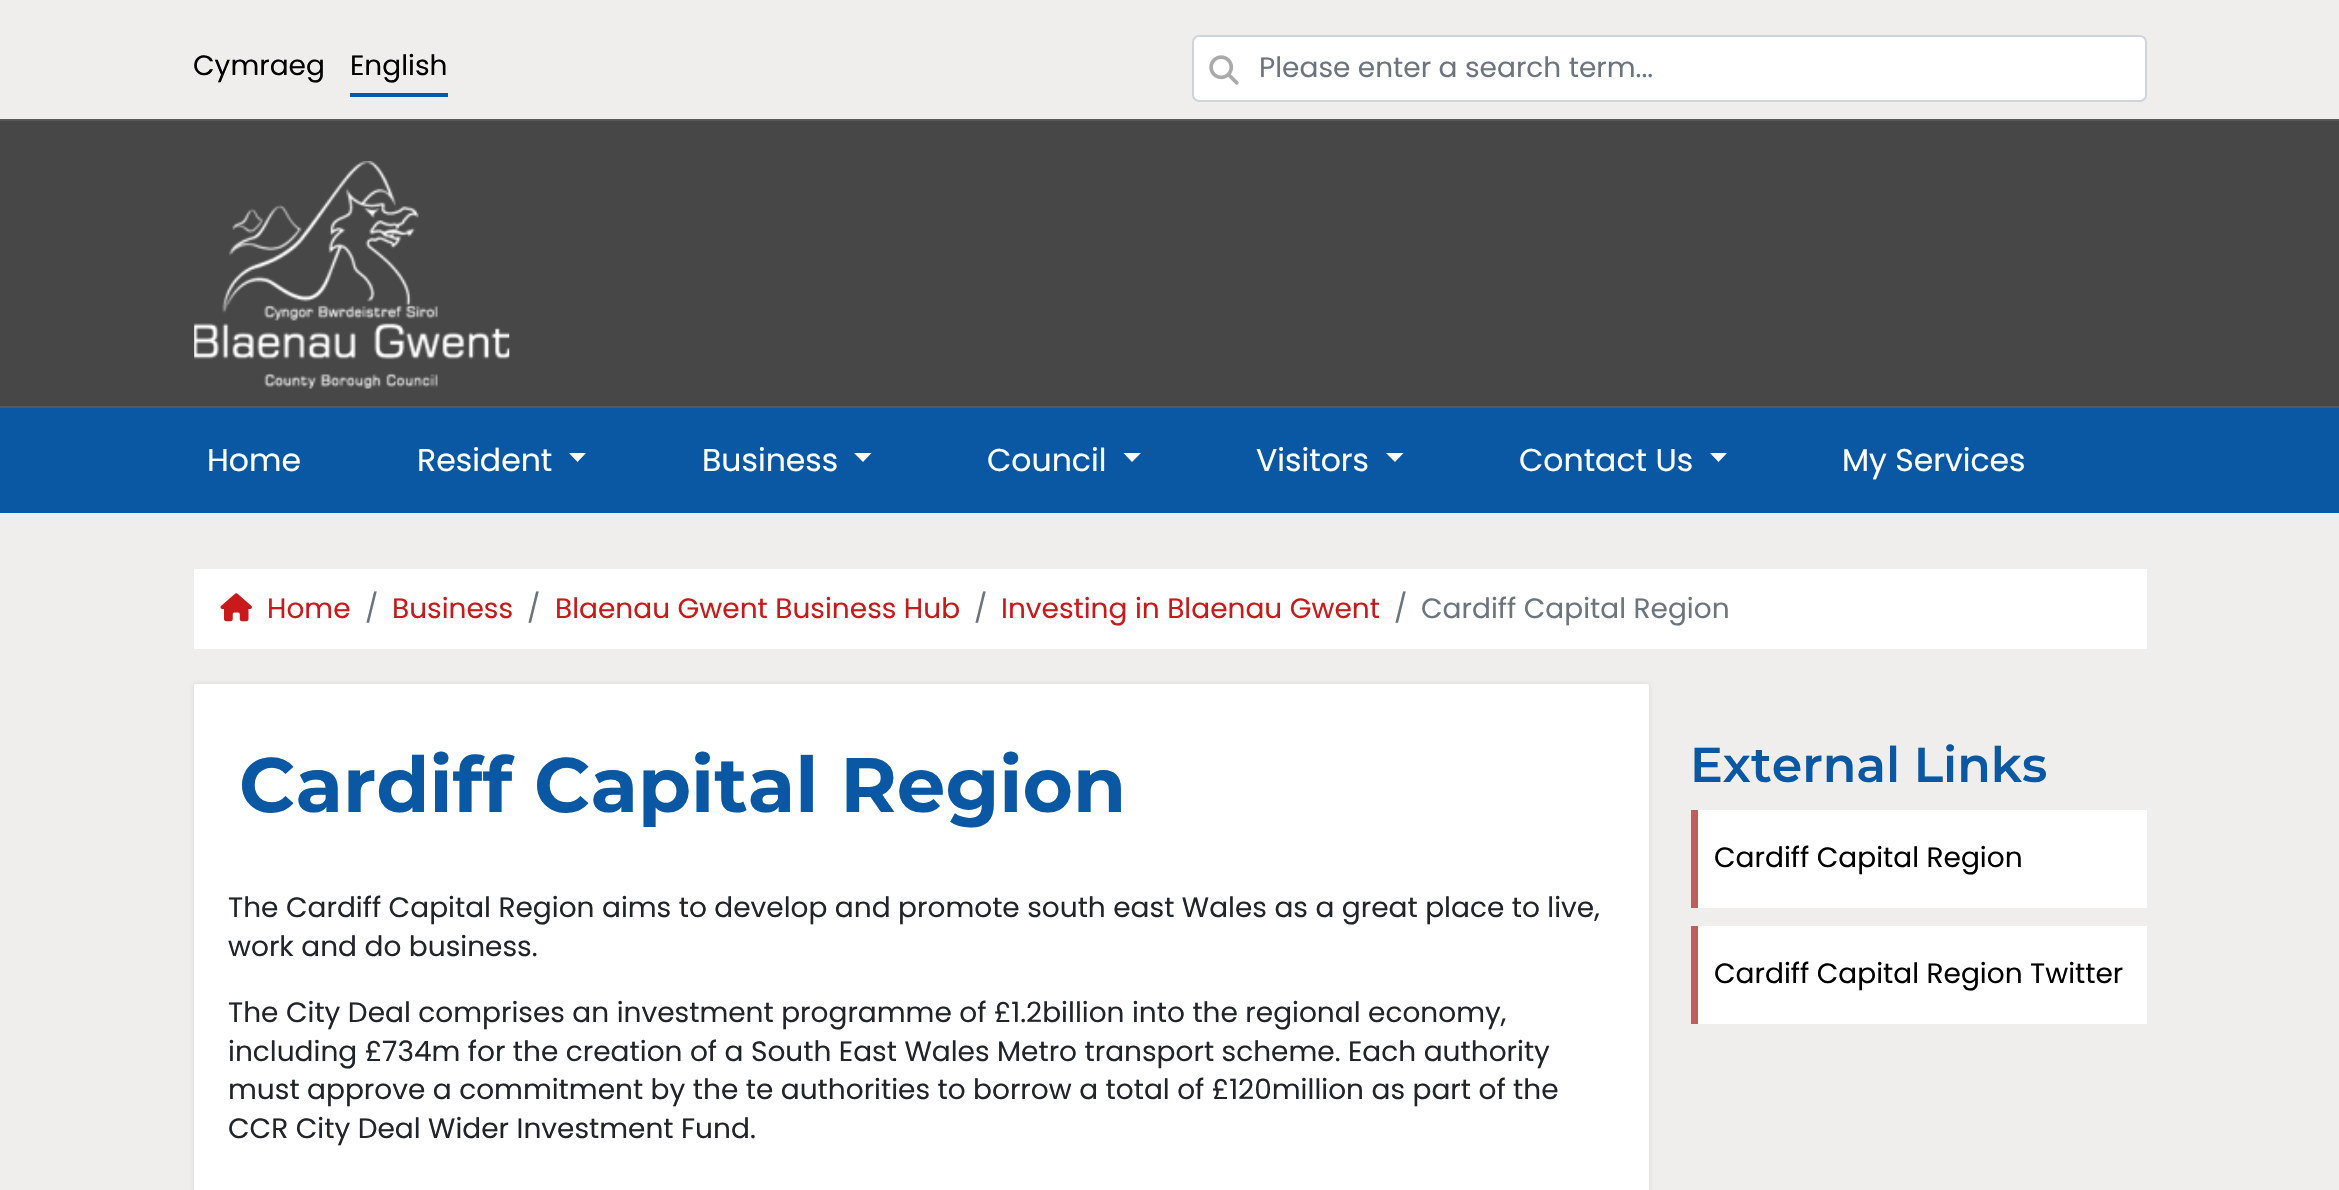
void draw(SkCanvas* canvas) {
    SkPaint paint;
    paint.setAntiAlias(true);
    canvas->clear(0xFFEFEEED);
    SkFont font1(fontMgr->matchFamilyStyle("Poppins", SkFontStyle::Normal()), 28);
    font1.setSubpixel(true);
    paint.setColor(0xFF000000);
    canvas->drawString("Cymraeg", 193, 75, font1, paint);
    canvas->drawString("English", 350, 75, font1, paint);
    paint.setColor(0xFF0A57A4);
    canvas->drawRect(SkRect::MakeXYWH(350, 93, 98, 4), paint);
    paint.setColor(0xFFFFFFFF);
    canvas->drawRoundRect(SkRect::MakeXYWH(1193, 36, 953, 65), 6, 6, paint);
    paint.setStyle(SkPaint::kStroke_Style);
    paint.setStrokeWidth(2);
    paint.setColor(0xFFCED4DA);
    canvas->drawRoundRect(SkRect::MakeXYWH(1193, 36, 953, 65), 6, 6, paint);
    canvas->drawImageRect(SkImages::DeferredFromEncodedData(SkData::MakeFromFileName("img1.png")), SkRect::MakeXYWH(1209, 55, 30, 30), SkSamplingOptions());
    paint.setStyle(SkPaint::kFill_Style);
    paint.setColor(0xFF6C757D);
    canvas->drawString("Please enter a search term...", 1259, 77, font1, paint);
    paint.setColor(0xFF474747);
    canvas->drawRect(SkRect::MakeXYWH(0, 121, 2339, 285), paint);
    paint.setColor(0xFF585858);
    canvas->drawRect(SkRect::MakeXYWH(0, 119, 2339, 2), paint);
    canvas->drawRect(SkRect::MakeXYWH(0, 406, 2339, 2), paint);
    canvas->drawImageRect(SkImages::DeferredFromEncodedData(SkData::MakeFromFileName("img2.png")), SkRect::MakeXYWH(194, 161, 316, 228), SkSamplingOptions());
    paint.setColor(0xFF0A57A4);
    canvas->drawRect(SkRect::MakeXYWH(0, 408, 2339, 105), paint);
    SkFont font2(fontMgr->matchFamilyStyle("Poppins", SkFontStyle::Normal()), 31.5f);
    font2.setSubpixel(true);
    paint.setColor(0xFFFFFFFF);
    canvas->drawString("Home", 207, 471, font2, paint);
    canvas->drawString("Resident", 417, 471, font2, paint);
    canvas->drawPath(SkPathBuilder().moveTo(569, 453).lineTo(586, 453).lineTo(577.5f, 462).close().detach(), paint);
    canvas->drawString("Business", 702, 471, font2, paint);
    canvas->drawPath(SkPathBuilder().moveTo(854, 453).lineTo(871.5f, 453).lineTo(863, 462).close().detach(), paint);
    canvas->drawString("Council", 987, 471, font2, paint);
    canvas->drawPath(SkPathBuilder().moveTo(1123.5f, 453).lineTo(1141, 453).lineTo(1132, 462).close().detach(), paint);
    canvas->drawString("Visitors", 1256, 471, font2, paint);
    canvas->drawPath(SkPathBuilder().moveTo(1386, 453).lineTo(1403.5f, 453).lineTo(1395, 462).close().detach(), paint);
    canvas->drawString("Contact Us", 1519, 471, font2, paint);
    canvas->drawPath(SkPathBuilder().moveTo(1710, 453).lineTo(1727, 453).lineTo(1718.5f, 462).close().detach(), paint);
    canvas->drawString("My Services", 1842, 471, font2, paint);
    canvas->drawRect(SkRect::MakeXYWH(194, 569, 1953, 80), paint);
    canvas->drawImageRect(SkImages::DeferredFromEncodedData(SkData::MakeFromFileName("img3.png")), SkRect::MakeXYWH(220, 593, 32, 29), SkSamplingOptions());
    paint.setColor(0xFFC81A1A);
    canvas->drawString("Home", 267, 618, font1, paint);
    paint.setColor(0xFF6C757D);
    canvas->drawString("/", 365, 618, font1, paint);
    paint.setColor(0xFFC81A1A);
    canvas->drawString("Business", 392, 618, font1, paint);
    paint.setColor(0xFF6C757D);
    canvas->drawString("/", 527, 618, font1, paint);
    paint.setColor(0xFFC81A1A);
    canvas->drawString("Blaenau Gwent Business Hub", 555, 618, font1, paint);
    paint.setColor(0xFF6C757D);
    canvas->drawString("/", 974, 618, font1, paint);
    paint.setColor(0xFFC81A1A);
    canvas->drawString("Investing in Blaenau Gwent", 1001, 618, font1, paint);
    paint.setColor(0xFF6C757D);
    canvas->drawString("/", 1394, 618, font1, paint);
    canvas->drawString("Cardiff Capital Region", 1421, 618, font1, paint);
    paint.setColor(0x1A000000);
    paint.setMaskFilter(SkMaskFilter::MakeBlur(kNormal_SkBlurStyle, 2));
    canvas->drawRoundRect(SkRect::MakeXYWH(194, 684, 1455, 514), 2, 2, paint);
    paint.setMaskFilter(nullptr);
    paint.setColor(0xFFFFFFFF);
    canvas->drawRoundRect(SkRect::MakeXYWH(194, 684, 1455, 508), 2, 2, paint);
    SkFont font3(fontMgr->matchFamilyStyle("Montserrat", SkFontStyle::Bold()), 77);
    font3.setSubpixel(true);
    paint.setColor(0xFF0A57A4);
    canvas->drawString("Cardiff Capital Region", 239, 812, font3, paint);
    paint.setColor(0xFF212529);
    canvas->drawString("The Cardiff Capital Region aims to develop and promote south east Wales as a great place to live,", 228, 917, font1, paint);
    canvas->drawString("work and do business.", 228, 956, font1, paint);
    canvas->drawString("The City Deal comprises an investment programme of £1.2billion into the regional economy,", 228, 1022, font1, paint);
    canvas->drawString("including £734m for the creation of a South East Wales Metro transport scheme. Each authority", 228, 1061, font1, paint);
    canvas->drawString("must approve a commitment by the te authorities to borrow a total of £120million as part of the", 228, 1099, font1, paint);
    canvas->drawString("CCR City Deal Wider Investment Fund.", 228, 1138, font1, paint);
    SkFont font4(fontMgr->matchFamilyStyle("Montserrat", SkFontStyle(600, SkFontStyle::kNormal_Width, SkFontStyle::kUpright_Slant)), 49);
    font4.setSubpixel(true);
    paint.setColor(0xFF0A57A4);
    canvas->drawString("External Links", 1690, 782, font4, paint);
    paint.setColor(0xFFFFFFFF);
    canvas->drawRect(SkRect::MakeXYWH(1698, 810, 449, 98), paint);
    paint.setColor(0xFFBE5E5E);
    canvas->drawRect(SkRect::MakeXYWH(1691, 810, 7, 98), paint);
    paint.setColor(0xFF000000);
    canvas->drawString("Cardiff Capital Region", 1714, 867, font1, paint);
    paint.setColor(0xFFFFFFFF);
    canvas->drawRect(SkRect::MakeXYWH(1698, 926, 449, 98), paint);
    paint.setColor(0xFFBE5E5E);
    canvas->drawRect(SkRect::MakeXYWH(1691, 926, 7, 98), paint);
    paint.setColor(0xFF000000);
    canvas->drawString("Cardiff Capital Region Twitter", 1714, 983, font1, paint);
}
